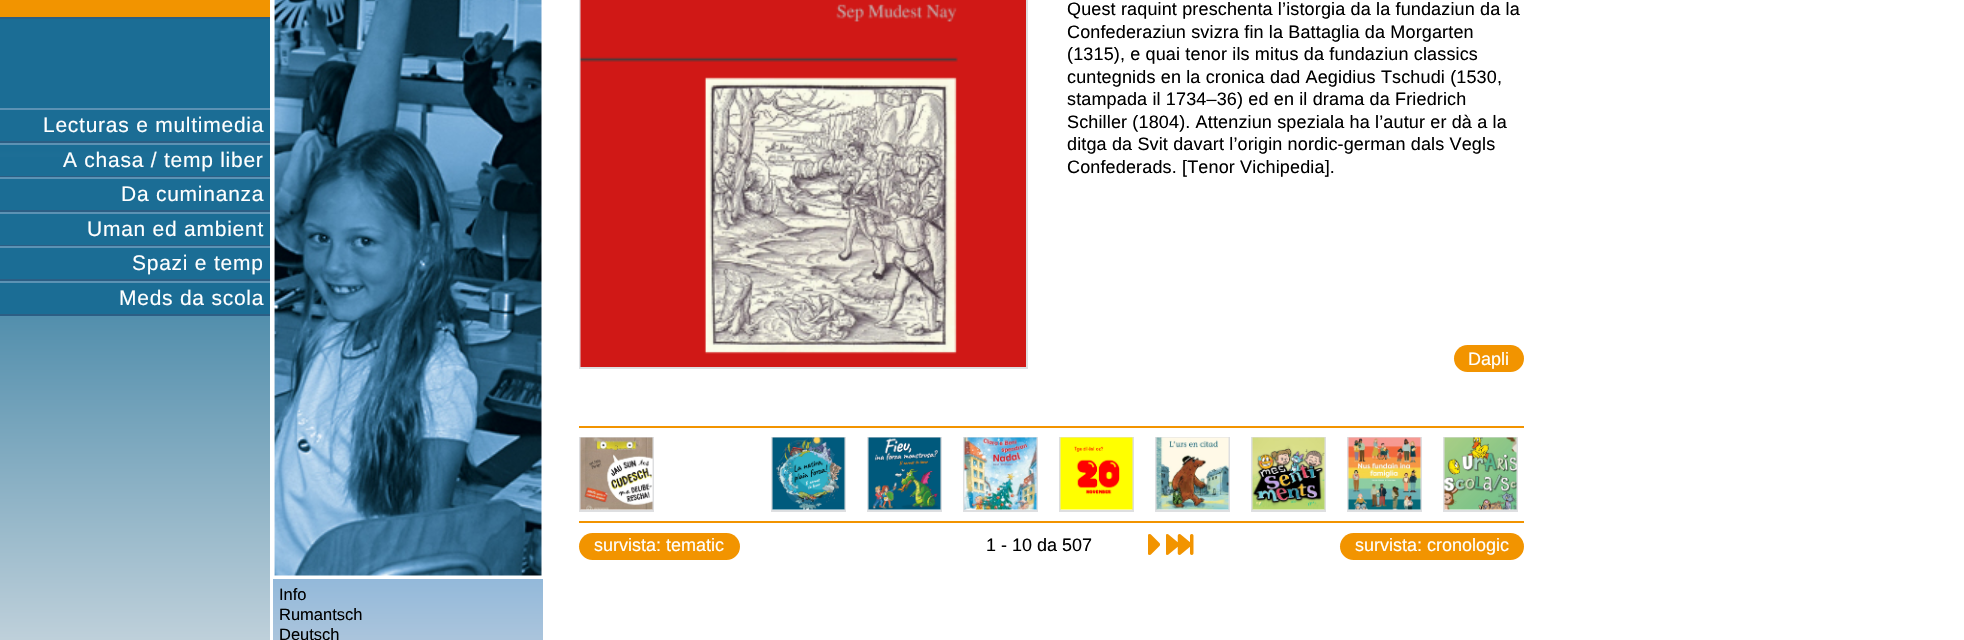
void draw(SkCanvas* canvas) {
    SkPaint paint;
    paint.setAntiAlias(true);
    auto spacedText = [&](const char* s, float x, float y, const SkFont& font, const SkPaint& ink, float letter, float word) {
        std::vector<SkGlyphID> glyphs(font.countText(s, strlen(s), SkTextEncoding::kUTF8));
        std::vector<float> xs(glyphs.size());
        font.textToGlyphs(s, strlen(s), SkTextEncoding::kUTF8, glyphs);
        font.getXPos(glyphs, xs, x);
        float extra = 0;
        for (size_t i = 0; i < glyphs.size(); i++) {
            xs[i] += extra;
            extra += letter + word * (glyphs[i] == font.unicharToGlyph(' '));
        }
        canvas->drawTextBlob(SkTextBlob::MakeFromPosHGlyphs(glyphs, xs, y, font), 0, 0, ink);
    };
    canvas->clear(0xFFFFFFFF);
    {
        const SkColor colors[] = {0xFF1B6D95, 0xFF1B6D95, 0xFFDCE2E7};
        const float stops[] = {0, 0.5f, 1};
        const SkPoint ends[] = {{135, -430}, {135, 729}};
        paint.setShader(SkGradientShader::MakeLinear(ends, colors, stops, 3, SkTileMode::kClamp));
        paint.setAlpha(255);
    }
    canvas->drawRect(SkRect::MakeXYWH(0, 19, 270, 621), paint);
    paint.setShader(nullptr);
    paint.setColor(0xFFF29400);
    canvas->drawRect(SkRect::MakeXYWH(0, 0, 270, 17), paint);
    paint.setColor(0xFF2C5E84);
    canvas->drawRect(SkRect::MakeXYWH(0, 17, 270, 2), paint);
    paint.setColor(0xFF5C92B4);
    canvas->drawRect(SkRect::MakeXYWH(0, 108, 270, 2), paint);
    paint.setColor(0xFF2C5E84);
    canvas->drawRect(SkRect::MakeXYWH(0, 141, 270, 2), paint);
    SkFont font1(fontMgr->matchFamilyStyle("Liberation Sans", SkFontStyle::Normal()), 21);
    font1.setSubpixel(true);
    paint.setColor(0xFFFFFFFF);
    spacedText("Lecturas e multimedia", 43, 132, font1, paint, 0.75f, 0);
    paint.setColor(0xFF1B6D95);
    canvas->drawRect(SkRect::MakeXYWH(0, 157, 270, 19), paint);
    paint.setColor(0xFF5C92B4);
    canvas->drawRect(SkRect::MakeXYWH(0, 143, 270, 2), paint);
    paint.setColor(0xFF2C5E84);
    canvas->drawRect(SkRect::MakeXYWH(0, 176, 270, 1), paint);
    paint.setColor(0xFFFFFFFF);
    spacedText("A chasa / temp liber", 63, 167, font1, paint, 0.75f, 0);
    paint.setColor(0xFF1B6D95);
    canvas->drawRect(SkRect::MakeXYWH(0, 179, 270, 31), paint);
    paint.setColor(0xFF5C92B4);
    canvas->drawRect(SkRect::MakeXYWH(0, 177, 270, 2), paint);
    paint.setColor(0xFF2C5E84);
    canvas->drawRect(SkRect::MakeXYWH(0, 210, 270, 2), paint);
    paint.setColor(0xFFFFFFFF);
    spacedText("Da cuminanza", 121, 201, font1, paint, 0.75f, 0);
    paint.setColor(0xFF1B6D95);
    canvas->drawRect(SkRect::MakeXYWH(0, 214, 270, 31), paint);
    paint.setColor(0xFF5C92B4);
    canvas->drawRect(SkRect::MakeXYWH(0, 212, 270, 2), paint);
    paint.setColor(0xFF2C5E84);
    canvas->drawRect(SkRect::MakeXYWH(0, 245, 270, 1), paint);
    paint.setColor(0xFFFFFFFF);
    spacedText("Uman ed ambient", 87, 236, font1, paint, 0.75f, 0);
    paint.setColor(0xFF1B6D95);
    canvas->drawRect(SkRect::MakeXYWH(0, 248, 270, 31), paint);
    paint.setColor(0xFF5C92B4);
    canvas->drawRect(SkRect::MakeXYWH(0, 246, 270, 2), paint);
    paint.setColor(0xFF2C5E84);
    canvas->drawRect(SkRect::MakeXYWH(0, 279, 270, 2), paint);
    paint.setColor(0xFFFFFFFF);
    spacedText("Spazi e temp", 132, 270, font1, paint, 0.75f, 0);
    paint.setColor(0xFF1B6D95);
    canvas->drawRect(SkRect::MakeXYWH(0, 283, 270, 31), paint);
    paint.setColor(0xFF5C92B4);
    canvas->drawRect(SkRect::MakeXYWH(0, 281, 270, 2), paint);
    paint.setColor(0xFF2C5E84);
    canvas->drawRect(SkRect::MakeXYWH(0, 314, 270, 2), paint);
    paint.setColor(0xFFFFFFFF);
    spacedText("Meds da scola", 119, 305, font1, paint, 0.75f, 0);
    paint.setStyle(SkPaint::kStroke_Style);
    paint.setStrokeWidth(2);
    paint.setColor(0xFFDEDFE1);
    canvas->drawRect(SkRect::MakeXYWH(580, -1, 447, 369), paint);
    canvas->drawImageRect(SkImages::DeferredFromEncodedData(SkData::MakeFromFileName("img1.png")), SkRect::MakeXYWH(580, 0, 446, 367), SkSamplingOptions());
    SkFont font2(fontMgr->matchFamilyStyle("Liberation Sans", SkFontStyle::Normal()), 18);
    font2.setSubpixel(true);
    paint.setStyle(SkPaint::kFill_Style);
    paint.setColor(0xFF000000);
    spacedText("Quest raquint preschenta l’istorgia da la fundaziun da la", 1067, 15, font2, paint, 0.15f, 0);
    spacedText("Confederaziun svizra fin la Battaglia da Morgarten", 1067, 38, font2, paint, 0.15f, 0);
    spacedText("(1315), e quai tenor ils mitus da fundaziun classics", 1067, 60, font2, paint, 0.15f, 0);
    spacedText("cuntegnids en la cronica dad Aegidius Tschudi (1530,", 1067, 83, font2, paint, 0.15f, 0);
    spacedText("stampada il 1734–36) ed en il drama da Friedrich", 1067, 105, font2, paint, 0.15f, 0);
    spacedText("Schiller (1804). Attenziun speziala ha l’autur er dà a la", 1067, 128, font2, paint, 0.15f, 0);
    spacedText("ditga da Svit davart l’origin nordic-german dals Vegls", 1067, 150, font2, paint, 0.15f, 0);
    spacedText("Confederads. [Tenor Vichipedia].", 1067, 173, font2, paint, 0.15f, 0);
    paint.setColor(0xFFF29400);
    canvas->drawRoundRect(SkRect::MakeXYWH(1454, 345, 70, 27), 13.5f, 13.5f, paint);
    paint.setColor(0xFFFFFFFF);
    canvas->drawString("Dapli", 1468, 365, font2, paint);
    paint.setColor(0xFFF29400);
    canvas->drawRect(SkRect::MakeXYWH(579, 426, 945, 2), paint);
    paint.setStyle(SkPaint::kStroke_Style);
    paint.setColor(0xFFDEDFE1);
    canvas->drawRect(SkRect::MakeXYWH(580, 438, 73, 73), paint);
    canvas->drawImageRect(SkImages::DeferredFromEncodedData(SkData::MakeFromFileName("img2.png")), SkRect::MakeXYWH(580, 437, 73, 73), SkSamplingOptions());
    canvas->drawRect(SkRect::MakeXYWH(772, 438, 73, 73), paint);
    canvas->drawImageRect(SkImages::DeferredFromEncodedData(SkData::MakeFromFileName("img3.png")), SkRect::MakeXYWH(772, 437, 73, 73), SkSamplingOptions());
    canvas->drawRect(SkRect::MakeXYWH(868, 438, 73, 73), paint);
    canvas->drawImageRect(SkImages::DeferredFromEncodedData(SkData::MakeFromFileName("img4.png")), SkRect::MakeXYWH(868, 437, 73, 73), SkSamplingOptions());
    canvas->drawRect(SkRect::MakeXYWH(964, 438, 73, 73), paint);
    canvas->drawImageRect(SkImages::DeferredFromEncodedData(SkData::MakeFromFileName("img5.png")), SkRect::MakeXYWH(964, 437, 73, 73), SkSamplingOptions());
    canvas->drawRect(SkRect::MakeXYWH(1060, 438, 73, 73), paint);
    canvas->drawImageRect(SkImages::DeferredFromEncodedData(SkData::MakeFromFileName("img6.png")), SkRect::MakeXYWH(1060, 437, 73, 73), SkSamplingOptions());
    canvas->drawRect(SkRect::MakeXYWH(1156, 438, 73, 73), paint);
    canvas->drawImageRect(SkImages::DeferredFromEncodedData(SkData::MakeFromFileName("img7.png")), SkRect::MakeXYWH(1156, 437, 73, 73), SkSamplingOptions());
    canvas->drawRect(SkRect::MakeXYWH(1252, 438, 73, 73), paint);
    canvas->drawImageRect(SkImages::DeferredFromEncodedData(SkData::MakeFromFileName("img8.png")), SkRect::MakeXYWH(1252, 437, 73, 73), SkSamplingOptions());
    canvas->drawRect(SkRect::MakeXYWH(1348, 438, 73, 73), paint);
    canvas->drawImageRect(SkImages::DeferredFromEncodedData(SkData::MakeFromFileName("img9.png")), SkRect::MakeXYWH(1348, 437, 73, 73), SkSamplingOptions());
    canvas->drawRect(SkRect::MakeXYWH(1444, 438, 73, 73), paint);
    canvas->drawImageRect(SkImages::DeferredFromEncodedData(SkData::MakeFromFileName("img10.png")), SkRect::MakeXYWH(1444, 437, 73, 73), SkSamplingOptions());
    paint.setStyle(SkPaint::kFill_Style);
    paint.setColor(0xFFF29400);
    canvas->drawRect(SkRect::MakeXYWH(579, 521, 945, 2), paint);
    canvas->drawRoundRect(SkRect::MakeXYWH(579, 533, 161, 27), 13.5f, 13.5f, paint);
    paint.setColor(0xFFFFFFFF);
    canvas->drawString("survista: tematic", 594, 551, font2, paint);
    paint.setColor(0xFF000000);
    canvas->drawString("1 - 10 da 507", 986, 551, font2, paint);
    canvas->drawImageRect(SkImages::DeferredFromEncodedData(SkData::MakeFromFileName("img11.png")), SkRect::MakeXYWH(1148, 534, 12, 21), SkSamplingOptions());
    canvas->drawImageRect(SkImages::DeferredFromEncodedData(SkData::MakeFromFileName("img12.png")), SkRect::MakeXYWH(1166, 534, 28, 21), SkSamplingOptions());
    paint.setColor(0xFFF29400);
    canvas->drawRoundRect(SkRect::MakeXYWH(1340, 533, 184, 27), 13.5f, 13.5f, paint);
    paint.setColor(0xFFFFFFFF);
    canvas->drawString("survista: cronologic", 1355, 551, font2, paint);
    canvas->drawImageRect(SkImages::DeferredFromEncodedData(SkData::MakeFromFileName("img13.png")), SkRect::MakeXYWH(274, 0, 268, 576), SkSamplingOptions());
    {
        const SkColor colors[] = {0xFF93B9DA, 0xFFCDD5DF};
        const float stops[] = {0, 1};
        const SkPoint ends[] = {{408, 579}, {408, 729}};
        paint.setShader(SkGradientShader::MakeLinear(ends, colors, stops, 2, SkTileMode::kClamp));
        paint.setAlpha(255);
    }
    canvas->drawRect(SkRect::MakeXYWH(273, 579, 270, 61), paint);
    SkFont font3(fontMgr->matchFamilyStyle("Liberation Sans", SkFontStyle::Normal()), 16.5f);
    font3.setSubpixel(true);
    paint.setShader(nullptr);
    paint.setColor(0xFF000000);
    canvas->drawString("Info", 279, 600, font3, paint);
    canvas->drawString("Rumantsch", 279, 620, font3, paint);
    canvas->drawString("Deutsch", 279, 640, font3, paint);
}
